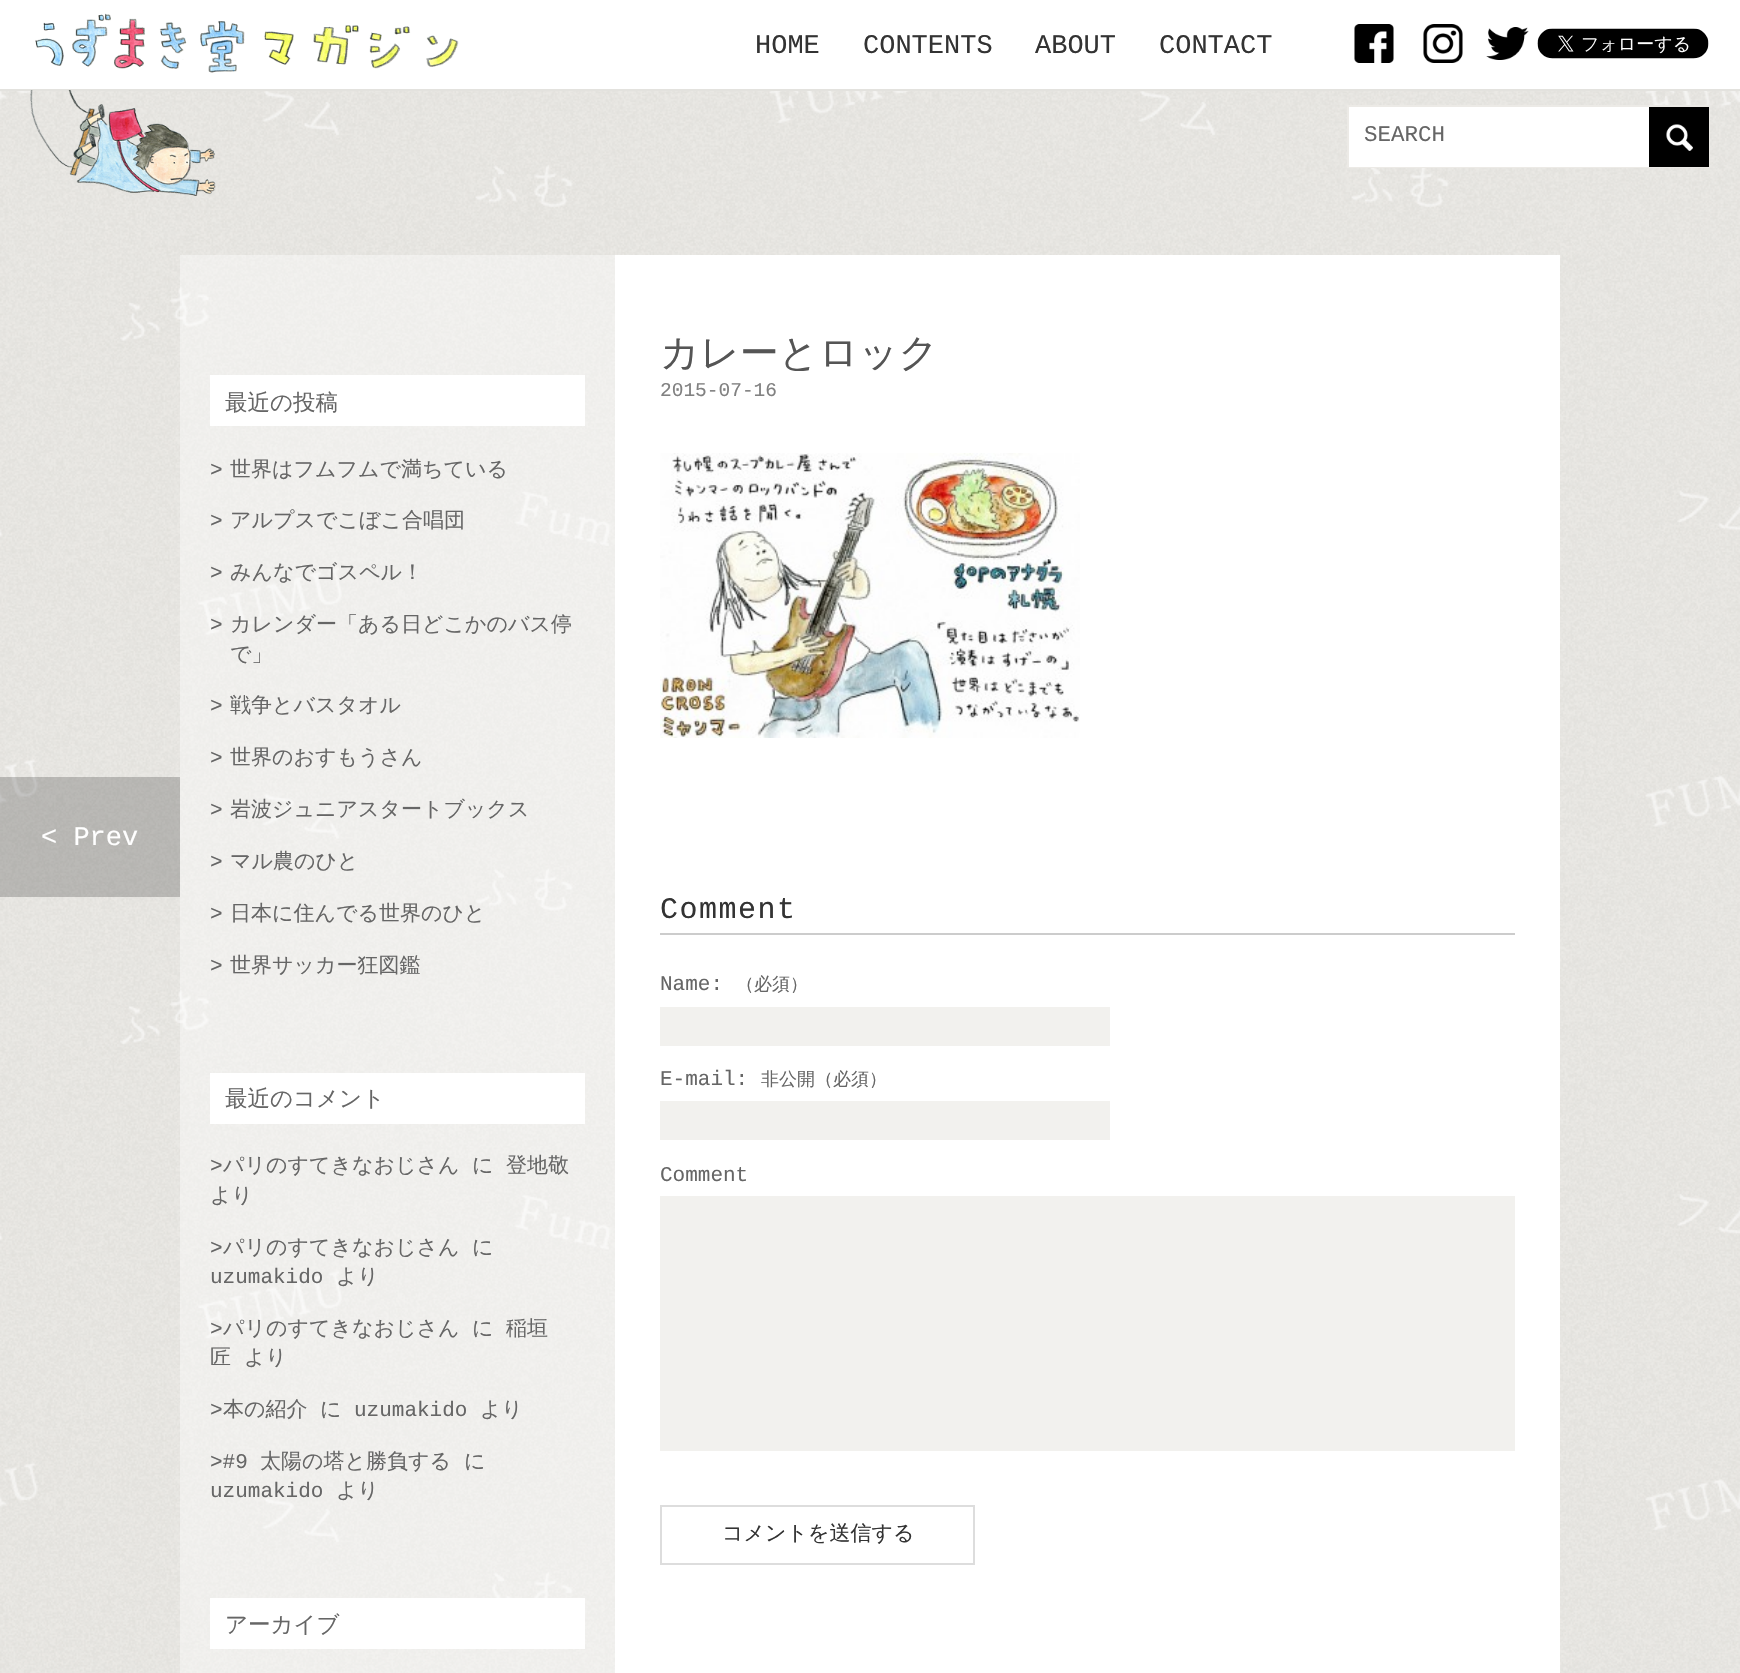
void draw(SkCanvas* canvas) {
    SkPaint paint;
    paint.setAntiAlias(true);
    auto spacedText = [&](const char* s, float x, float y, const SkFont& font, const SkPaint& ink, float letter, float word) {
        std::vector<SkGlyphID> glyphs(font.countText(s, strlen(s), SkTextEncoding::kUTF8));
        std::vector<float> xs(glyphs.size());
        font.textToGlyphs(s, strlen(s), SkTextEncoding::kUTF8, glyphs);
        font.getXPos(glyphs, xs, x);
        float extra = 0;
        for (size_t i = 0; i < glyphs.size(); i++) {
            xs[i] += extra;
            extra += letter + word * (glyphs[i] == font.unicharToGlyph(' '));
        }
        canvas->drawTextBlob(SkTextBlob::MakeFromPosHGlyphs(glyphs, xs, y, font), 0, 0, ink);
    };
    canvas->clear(0xFFFFFFFF);
    canvas->drawImageRect(SkImages::DeferredFromEncodedData(SkData::MakeFromFileName("img1.png")), SkRect::MakeXYWH(0, 91, 1740, 1582), SkSamplingOptions());
    paint.setColor(0xFFE3E2DE);
    canvas->drawRect(SkRect::MakeXYWH(0, 89, 1740, 2), paint);
    canvas->drawImageRect(SkImages::DeferredFromEncodedData(SkData::MakeFromFileName("img2.png")), SkRect::MakeXYWH(35, 13, 424, 60), SkSamplingOptions());
    SkFont font1(fontMgr->matchFamilyStyle("Liberation Mono", SkFontStyle::Normal()), 27);
    font1.setSubpixel(true);
    paint.setColor(0xFF333333);
    canvas->drawString("HOME", 755, 53, font1, paint);
    canvas->drawString("CONTENTS", 863, 53, font1, paint);
    canvas->drawString("ABOUT", 1035, 53, font1, paint);
    canvas->drawString("CONTACT", 1159, 53, font1, paint);
    canvas->drawImageRect(SkImages::DeferredFromEncodedData(SkData::MakeFromFileName("img3.png")), SkRect::MakeXYWH(1354, 24, 40, 39), SkSamplingOptions());
    canvas->drawImageRect(SkImages::DeferredFromEncodedData(SkData::MakeFromFileName("img4.png")), SkRect::MakeXYWH(1423, 24, 40, 39), SkSamplingOptions());
    canvas->drawImageRect(SkImages::DeferredFromEncodedData(SkData::MakeFromFileName("img5.png")), SkRect::MakeXYWH(1486, 27, 43, 33), SkSamplingOptions());
    canvas->drawImageRect(SkImages::DeferredFromEncodedData(SkData::MakeFromFileName("img6.png")), SkRect::MakeXYWH(1537, 28, 172, 31), SkSamplingOptions());
    canvas->drawImageRect(SkImages::DeferredFromEncodedData(SkData::MakeFromFileName("img7.png")), SkRect::MakeXYWH(30, 90, 186, 106), SkSamplingOptions());
    paint.setStyle(SkPaint::kStroke_Style);
    paint.setStrokeWidth(2);
    paint.setColor(0xFFECEAE6);
    canvas->drawRect(SkRect::MakeXYWH(1348, 106, 361, 61), paint);
    paint.setStyle(SkPaint::kFill_Style);
    paint.setColor(0xFFFFFFFF);
    canvas->drawRect(SkRect::MakeXYWH(1349, 107, 300, 60), paint);
    SkFont font2(fontMgr->matchFamilyStyle("Liberation Mono", SkFontStyle::Normal()), 22.5f);
    font2.setSubpixel(true);
    paint.setColor(0xFF666666);
    canvas->drawString("SEARCH", 1364, 141, font2, paint);
    paint.setColor(0xFF000000);
    canvas->drawRect(SkRect::MakeXYWH(1649, 107, 60, 60), paint);
    canvas->drawImageRect(SkImages::DeferredFromEncodedData(SkData::MakeFromFileName("img8.png")), SkRect::MakeXYWH(1666, 124, 27, 27), SkSamplingOptions());
    paint.setColor(0xFFFFFFFF);
    canvas->drawRect(SkRect::MakeXYWH(615, 255, 945, 1418), paint);
    SkFont font3(fontMgr->matchFamilyStyle("WenQuanYi Zen Hei", SkFontStyle(500, SkFontStyle::kNormal_Width, SkFontStyle::kUpright_Slant)), 39);
    font3.setSubpixel(true);
    paint.setColor(0xFF555555);
    canvas->drawString("カレーとロック", 660, 366, font3, paint);
    SkFont font4(fontMgr->matchFamilyStyle("Liberation Mono", SkFontStyle::Normal()), 19.5f);
    font4.setSubpixel(true);
    paint.setColor(0xFF818181);
    canvas->drawString("2015-07-16", 660, 396, font4, paint);
    canvas->drawImageRect(SkImages::DeferredFromEncodedData(SkData::MakeFromFileName("img9.png")), SkRect::MakeXYWH(660, 453, 420, 285), SkSamplingOptions());
    paint.setColor(0x33000000);
    canvas->drawRect(SkRect::MakeXYWH(0, 777, 180, 120), paint);
    paint.setColor(0xFFFFFFFF);
    canvas->drawString("< Prev", 41, 845, font1, paint);
    paint.setColor(0xFFCCCCCC);
    canvas->drawRect(SkRect::MakeXYWH(660, 933, 855, 2), paint);
    SkFont font5(fontMgr->matchFamilyStyle("Liberation Mono", SkFontStyle::Normal()), 30);
    font5.setSubpixel(true);
    paint.setColor(0xFF333333);
    spacedText("Comment", 660, 918, font5, paint, 1.5f, 0);
    SkFont font6(fontMgr->matchFamilyStyle("Liberation Mono", SkFontStyle::Normal()), 21);
    font6.setSubpixel(true);
    paint.setColor(0xFF666666);
    canvas->drawString("Name:", 660, 990, font6, paint);
    SkFont font7(fontMgr->matchFamilyStyle("WenQuanYi Zen Hei", SkFontStyle(500, SkFontStyle::kNormal_Width, SkFontStyle::kUpright_Slant)), 18);
    font7.setSubpixel(true);
    canvas->drawString("（必須）", 736, 990, font7, paint);
    paint.setColor(0xFFF2F1EE);
    canvas->drawRect(SkRect::MakeXYWH(660, 1007, 450, 39), paint);
    paint.setColor(0xFF666666);
    canvas->drawString("E-mail:", 660, 1085, font6, paint);
    canvas->drawString("非公開（必須）", 761, 1085, font7, paint);
    paint.setColor(0xFFF2F1EE);
    canvas->drawRect(SkRect::MakeXYWH(660, 1101, 450, 39), paint);
    paint.setColor(0xFF666666);
    canvas->drawString("Comment", 660, 1181, font6, paint);
    paint.setColor(0xFFF2F1EE);
    canvas->drawRect(SkRect::MakeXYWH(660, 1196, 855, 255), paint);
    paint.setStyle(SkPaint::kStroke_Style);
    paint.setColor(0xFFDDDDDD);
    canvas->drawRect(SkRect::MakeXYWH(661, 1506, 313, 58), paint);
    SkFont font8(fontMgr->matchFamilyStyle("WenQuanYi Zen Hei", SkFontStyle(500, SkFontStyle::kNormal_Width, SkFontStyle::kUpright_Slant)), 21);
    font8.setSubpixel(true);
    paint.setStyle(SkPaint::kFill_Style);
    paint.setColor(0xFF333333);
    canvas->drawString("コメントを送信する", 722, 1540, font8, paint);
    paint.setColor(0x66FFFFFF);
    canvas->drawRect(SkRect::MakeXYWH(180, 255, 435, 1418), paint);
    paint.setColor(0xFFFFFFFF);
    canvas->drawRect(SkRect::MakeXYWH(210, 375, 375, 51), paint);
    SkFont font9(fontMgr->matchFamilyStyle("WenQuanYi Zen Hei", SkFontStyle(500, SkFontStyle::kNormal_Width, SkFontStyle::kUpright_Slant)), 22.5f);
    font9.setSubpixel(true);
    paint.setColor(0xFF666666);
    canvas->drawString("最近の投稿", 225, 410, font9, paint);
    canvas->drawString(">", 210, 476, font6, paint);
    canvas->drawString("世界はフムフムで満ちている", 230, 476, font8, paint);
    canvas->drawString(">", 210, 527, font6, paint);
    canvas->drawString("アルプスでこぼこ合唱団", 230, 527, font8, paint);
    canvas->drawString(">", 210, 579, font6, paint);
    canvas->drawString("みんなでゴスペル！", 230, 579, font8, paint);
    canvas->drawString(">", 210, 631, font6, paint);
    canvas->drawString("カレンダー「ある日どこかのバス停", 230, 631, font8, paint);
    canvas->drawString("で」", 230, 661, font8, paint);
    canvas->drawString(">", 210, 712, font6, paint);
    canvas->drawString("戦争とバスタオル", 230, 712, font8, paint);
    canvas->drawString(">", 210, 764, font6, paint);
    canvas->drawString("世界のおすもうさん", 230, 764, font8, paint);
    canvas->drawString(">", 210, 816, font6, paint);
    canvas->drawString("岩波ジュニアスタートブックス", 230, 816, font8, paint);
    canvas->drawString(">", 210, 868, font6, paint);
    canvas->drawString("マル農のひと", 230, 868, font8, paint);
    canvas->drawString(">", 210, 920, font6, paint);
    canvas->drawString("日本に住んでる世界のひと", 230, 920, font8, paint);
    canvas->drawString(">", 210, 972, font6, paint);
    canvas->drawString("世界サッカー狂図鑑", 230, 972, font8, paint);
    paint.setColor(0xFFFFFFFF);
    canvas->drawRect(SkRect::MakeXYWH(210, 1073, 375, 51), paint);
    paint.setColor(0xFF666666);
    canvas->drawString("最近のコメント", 225, 1106, font9, paint);
    canvas->drawString(">", 210, 1172, font6, paint);
    canvas->drawString("パリのすてきなおじさん", 223, 1172, font8, paint);
    canvas->drawString("に", 472, 1172, font8, paint);
    canvas->drawString("登地敬", 506, 1172, font8, paint);
    canvas->drawString("より", 210, 1202, font8, paint);
    canvas->drawString(">", 210, 1254, font6, paint);
    canvas->drawString("パリのすてきなおじさん", 223, 1254, font8, paint);
    canvas->drawString("に", 472, 1254, font8, paint);
    canvas->drawString("uzumakido", 210, 1283, font6, paint);
    canvas->drawString("より", 336, 1283, font8, paint);
    canvas->drawString(">", 210, 1335, font6, paint);
    canvas->drawString("パリのすてきなおじさん", 223, 1335, font8, paint);
    canvas->drawString("に", 472, 1335, font8, paint);
    canvas->drawString("稲垣", 506, 1335, font8, paint);
    canvas->drawString("匠", 210, 1364, font8, paint);
    canvas->drawString("より", 244, 1364, font8, paint);
    canvas->drawString(">", 210, 1416, font6, paint);
    canvas->drawString("本の紹介", 223, 1416, font8, paint);
    canvas->drawString("に", 320, 1416, font8, paint);
    canvas->drawString("uzumakido", 354, 1416, font6, paint);
    canvas->drawString("より", 480, 1416, font8, paint);
    canvas->drawString(">#9", 210, 1468, font6, paint);
    canvas->drawString("太陽の塔と勝負する", 260, 1468, font8, paint);
    canvas->drawString("に", 464, 1468, font8, paint);
    canvas->drawString("uzumakido", 210, 1497, font6, paint);
    canvas->drawString("より", 336, 1497, font8, paint);
    paint.setColor(0xFFFFFFFF);
    canvas->drawRect(SkRect::MakeXYWH(210, 1598, 375, 51), paint);
    paint.setColor(0xFF666666);
    canvas->drawString("アーカイブ", 225, 1632, font9, paint);
}
